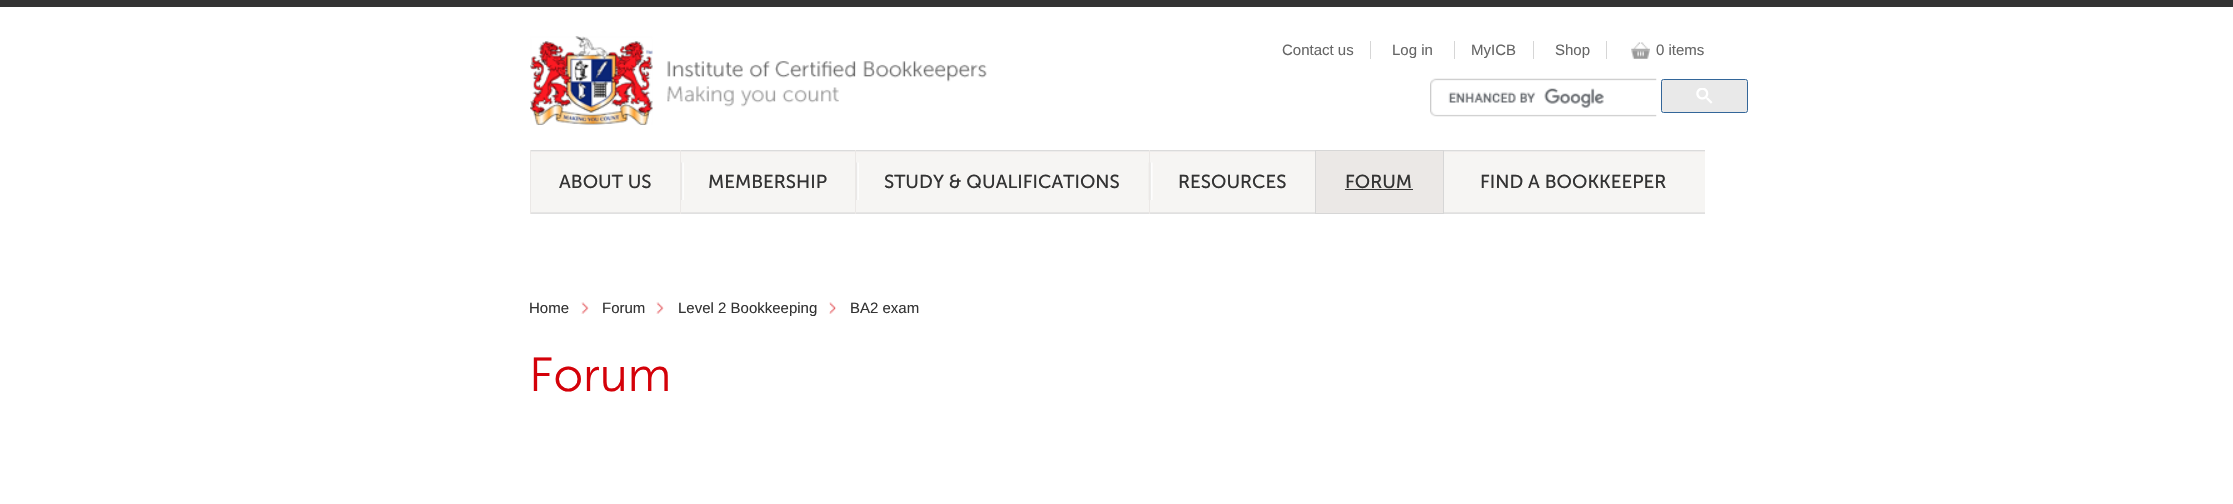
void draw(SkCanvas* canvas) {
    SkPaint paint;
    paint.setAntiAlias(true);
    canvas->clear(0xFFFFFFFF);
    paint.setColor(0xFF333333);
    canvas->drawRect(SkRect::MakeXYWH(0, 0, 2233, 7), paint);
    canvas->drawImageRect(SkImages::DeferredFromEncodedData(SkData::MakeFromFileName("img1.png")), SkRect::MakeXYWH(530, 36, 457, 89), SkSamplingOptions());
    SkFont font1(fontMgr->matchFamilyStyle("Liberation Sans", SkFontStyle::Normal()), 15);
    font1.setSubpixel(true);
    paint.setColor(0xFF666666);
    canvas->drawString("Contact us", 1282, 55, font1, paint);
    paint.setColor(0xFFD6D6D6);
    canvas->drawRect(SkRect::MakeXYWH(1370, 41, 1, 18), paint);
    paint.setColor(0xFF666666);
    canvas->drawString("Log in", 1392, 55, font1, paint);
    paint.setColor(0xFFD6D6D6);
    canvas->drawRect(SkRect::MakeXYWH(1454, 41, 1, 18), paint);
    paint.setColor(0xFF666666);
    canvas->drawString("MyICB", 1471, 55, font1, paint);
    paint.setColor(0xFFD6D6D6);
    canvas->drawRect(SkRect::MakeXYWH(1533, 41, 1, 18), paint);
    paint.setColor(0xFF666666);
    canvas->drawString("Shop", 1555, 55, font1, paint);
    paint.setColor(0xFFD6D6D6);
    canvas->drawRect(SkRect::MakeXYWH(1606, 41, 1, 18), paint);
    canvas->drawImageRect(SkImages::DeferredFromEncodedData(SkData::MakeFromFileName("img2.png")), SkRect::MakeXYWH(1631, 42, 19, 17), SkSamplingOptions());
    paint.setColor(0xFF666666);
    canvas->drawString("0 items", 1656, 55, font1, paint);
    canvas->drawImageRect(SkImages::DeferredFromEncodedData(SkData::MakeFromFileName("img3.png")), SkRect::MakeXYWH(1430, 78, 227, 39), SkSamplingOptions());
    canvas->drawImageRect(SkImages::DeferredFromEncodedData(SkData::MakeFromFileName("img4.png")), SkRect::MakeXYWH(1448, 88, 156, 20), SkSamplingOptions());
    paint.setColor(0xFFE9E9E9);
    canvas->drawRoundRect(SkRect::MakeXYWH(1661.5f, 79.5f, 86, 33), 2, 2, paint);
    paint.setStyle(SkPaint::kStroke_Style);
    paint.setStrokeWidth(1);
    paint.setColor(0xFF336699);
    canvas->drawRoundRect(SkRect::MakeXYWH(1661.5f, 79.5f, 86, 33), 2, 2, paint);
    canvas->drawImageRect(SkImages::DeferredFromEncodedData(SkData::MakeFromFileName("img5.png")), SkRect::MakeXYWH(1696, 88, 17, 16), SkSamplingOptions());
    canvas->drawImageRect(SkImages::DeferredFromEncodedData(SkData::MakeFromFileName("img6.png")), SkRect::MakeXYWH(531, 150, 1174, 64), SkSamplingOptions());
    paint.setStyle(SkPaint::kFill_Style);
    paint.setColor(0xFFEBE8E6);
    canvas->drawRect(SkRect::MakeXYWH(530, 150, 1, 64), paint);
    SkFont font2(fontMgr->matchFamilyStyle("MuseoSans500", SkFontStyle::Normal()), 18.75f);
    font2.setSubpixel(true);
    paint.setColor(0xFF333333);
    canvas->drawString("ABOUT US", 559, 188, font2, paint);
    canvas->drawImageRect(SkImages::DeferredFromEncodedData(SkData::MakeFromFileName("img7.png")), SkRect::MakeXYWH(681, 162, 3, 38), SkSamplingOptions());
    paint.setColor(0xFFEBE8E6);
    canvas->drawRect(SkRect::MakeXYWH(680, 150, 1, 64), paint);
    paint.setColor(0xFF333333);
    canvas->drawString("MEMBERSHIP", 708, 188, font2, paint);
    canvas->drawImageRect(SkImages::DeferredFromEncodedData(SkData::MakeFromFileName("img7.png")), SkRect::MakeXYWH(856, 162, 3, 38), SkSamplingOptions());
    paint.setColor(0xFFEBE8E6);
    canvas->drawRect(SkRect::MakeXYWH(855, 150, 1, 64), paint);
    paint.setColor(0xFF333333);
    canvas->drawString("STUDY & QUALIFICATIONS", 884, 188, font2, paint);
    canvas->drawImageRect(SkImages::DeferredFromEncodedData(SkData::MakeFromFileName("img8.png")), SkRect::MakeXYWH(1148, 162, 5, 38), SkSamplingOptions());
    paint.setColor(0xFFEBE8E6);
    canvas->drawRect(SkRect::MakeXYWH(1149, 150, 1, 64), paint);
    paint.setColor(0xFF333333);
    canvas->drawString("RESOURCES", 1178, 188, font2, paint);
    paint.setColor(0xFFEBE8E6);
    canvas->drawRect(SkRect::MakeXYWH(1316, 151, 127, 62), paint);
    paint.setColor(0xFFD6D6D6);
    canvas->drawRect(SkRect::MakeXYWH(1315, 150, 128, 1), paint);
    canvas->drawRect(SkRect::MakeXYWH(1315, 213, 128, 1), paint);
    canvas->drawRect(SkRect::MakeXYWH(1315, 150, 1, 64), paint);
    paint.setColor(0xFF333333);
    canvas->drawString("FORUM", 1345, 188, font2, paint);
    canvas->drawRect(SkRect::MakeXYWH(1345, 189, 68, 1), paint);
    paint.setColor(0xFFD6D6D6);
    canvas->drawRect(SkRect::MakeXYWH(1443, 150, 1, 64), paint);
    paint.setColor(0xFF333333);
    canvas->drawString("FIND A BOOKKEEPER", 1480, 188, font2, paint);
    canvas->drawImageRect(SkImages::DeferredFromEncodedData(SkData::MakeFromFileName("img9.png")), SkRect::MakeXYWH(581, 302, 8, 12), SkSamplingOptions());
    canvas->drawString("Home", 529, 313, font1, paint);
    canvas->drawImageRect(SkImages::DeferredFromEncodedData(SkData::MakeFromFileName("img9.png")), SkRect::MakeXYWH(656, 302, 8, 12), SkSamplingOptions());
    canvas->drawString("Forum", 602, 313, font1, paint);
    canvas->drawImageRect(SkImages::DeferredFromEncodedData(SkData::MakeFromFileName("img10.png")), SkRect::MakeXYWH(829, 302, 7, 12), SkSamplingOptions());
    canvas->drawString("Level 2 Bookkeeping", 678, 313, font1, paint);
    canvas->drawString("BA2 exam", 850, 313, font1, paint);
    SkFont font3(fontMgr->matchFamilyStyle("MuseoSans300", SkFontStyle::Normal()), 47.5f);
    font3.setSubpixel(true);
    paint.setColor(0xFFD40109);
    canvas->drawString("Forum", 529, 391, font3, paint);
}
